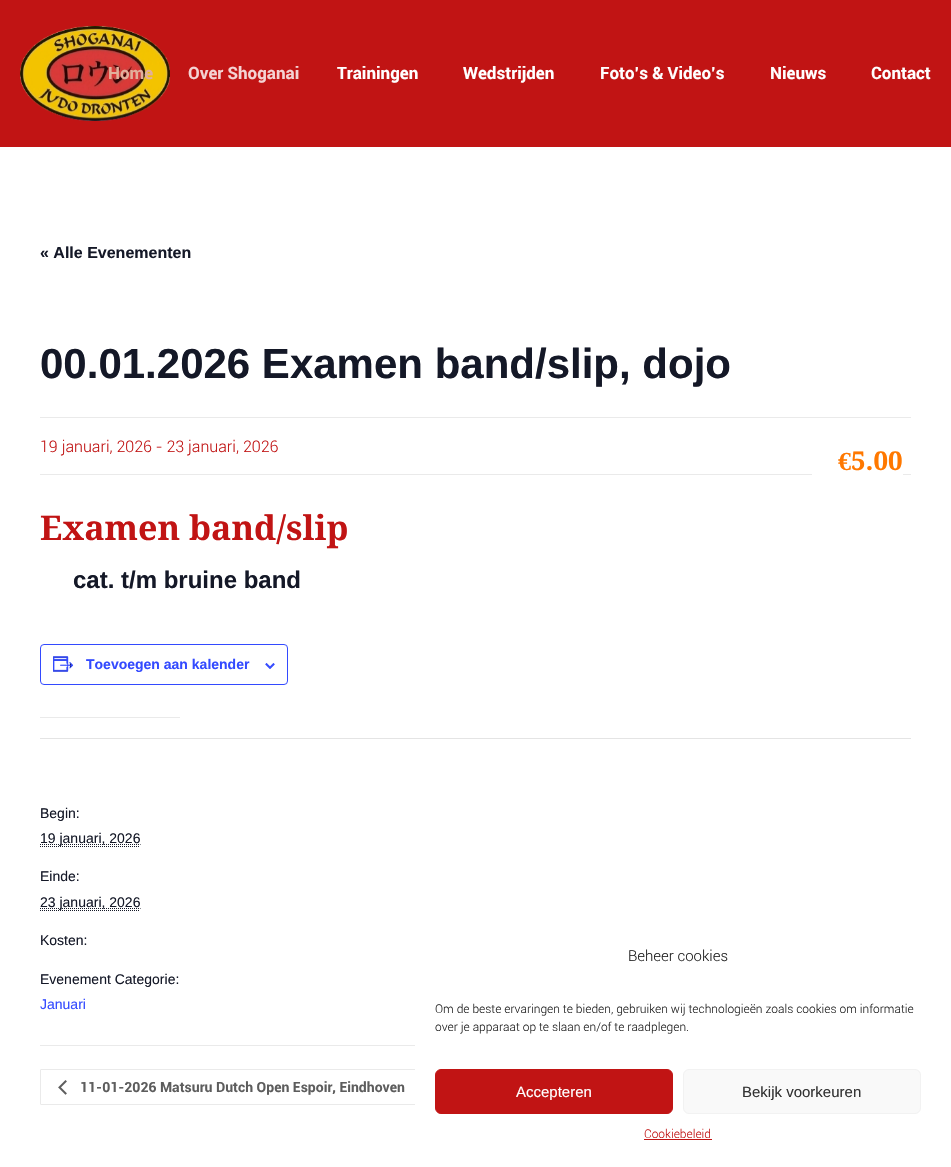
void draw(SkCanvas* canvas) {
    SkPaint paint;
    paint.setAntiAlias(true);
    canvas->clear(0xFFFFFFFF);
    paint.setColor(0xFFC11414);
    canvas->drawRect(SkRect::MakeXYWH(0, 0, 951, 147), paint);
    canvas->drawImageRect(SkImages::DeferredFromEncodedData(SkData::MakeFromFileName("img1.png")), SkRect::MakeXYWH(20, 26, 150, 95), SkSamplingOptions());
    SkFont font1(fontMgr->matchFamilyStyle("Roboto", SkFontStyle::Bold()), 17);
    font1.setSubpixel(true);
    paint.setColor(0xFFE2AF9B);
    canvas->drawString("Home", 108, 79, font1, paint);
    paint.setColor(0xFFF4D3D3);
    canvas->drawString("Over Shoganai", 188, 79, font1, paint);
    paint.setColor(0xFFFFFFFF);
    canvas->drawString("Trainingen", 337, 79, font1, paint);
    canvas->drawString("Wedstrijden", 463, 79, font1, paint);
    canvas->drawString("Foto’s & Video’s", 600, 79, font1, paint);
    canvas->drawString("Nieuws", 770, 79, font1, paint);
    canvas->drawString("Contact", 871, 79, font1, paint);
    SkFont font2(fontMgr->matchFamilyStyle("Liberation Sans", SkFontStyle::Bold()), 16);
    font2.setSubpixel(true);
    paint.setColor(0xFF141827);
    canvas->drawString("« Alle Evenementen", 40, 258, font2, paint);
    SkFont font3(fontMgr->matchFamilyStyle("Liberation Sans", SkFontStyle::Bold()), 42);
    font3.setSubpixel(true);
    canvas->drawString("00.01.2026 Examen band/slip, dojo", 40, 378, font3, paint);
    paint.setColor(0xFFEAEAEA);
    canvas->drawRect(SkRect::MakeXYWH(40, 417, 871, 1), paint);
    canvas->drawRect(SkRect::MakeXYWH(40, 474, 871, 1), paint);
    SkFont font4(fontMgr->matchFamilyStyle("Roboto", SkFontStyle(300, SkFontStyle::kNormal_Width, SkFontStyle::kUpright_Slant)), 16);
    font4.setSubpixel(true);
    paint.setColor(0xFFC11414);
    canvas->drawString("19 januari, 2026 - 23 januari, 2026", 40, 452, font4, paint);
    paint.setColor(0xFFFFFFFF);
    canvas->drawRect(SkRect::MakeXYWH(812, 474, 91, 1), paint);
    SkFont font5(fontMgr->matchFamilyStyle("Liberation Serif", SkFontStyle::Bold()), 26);
    font5.setSubpixel(true);
    paint.setColor(0xFFFF7800);
    canvas->drawString("€", 838, 470, font5, paint);
    SkFont font6(fontMgr->matchFamilyStyle("Droid Serif", SkFontStyle::Bold()), 26);
    font6.setSubpixel(true);
    canvas->drawString("5.00", 851, 470, font6, paint);
    SkFont font7(fontMgr->matchFamilyStyle("Droid Serif", SkFontStyle::Bold()), 34);
    font7.setSubpixel(true);
    paint.setColor(0xFFC11414);
    canvas->drawString("Examen band/slip", 40, 540, font7, paint);
    SkFont font8(fontMgr->matchFamilyStyle("Liberation Sans", SkFontStyle::Bold()), 24);
    font8.setSubpixel(true);
    paint.setColor(0xFF141827);
    canvas->drawString("cat. t/m bruine band", 73, 588, font8, paint);
    paint.setStyle(SkPaint::kStroke_Style);
    paint.setStrokeWidth(1);
    paint.setColor(0xFF334AFF);
    canvas->drawRoundRect(SkRect::MakeXYWH(40.5f, 644.5f, 247, 40), 3.5f, 3.5f, paint);
    canvas->drawImageRect(SkImages::DeferredFromEncodedData(SkData::MakeFromFileName("img2.png")), SkRect::MakeXYWH(53, 656, 21, 16), SkSamplingOptions());
    SkFont font9(fontMgr->matchFamilyStyle("Liberation Sans", SkFontStyle::Bold()), 14);
    font9.setSubpixel(true);
    paint.setStyle(SkPaint::kFill_Style);
    canvas->drawString("Toevoegen aan kalender", 86, 669, font9, paint);
    canvas->drawImageRect(SkImages::DeferredFromEncodedData(SkData::MakeFromFileName("img3.png")), SkRect::MakeXYWH(265, 663, 10, 6), SkSamplingOptions());
    paint.setColor(0xFFEAEAEA);
    canvas->drawRect(SkRect::MakeXYWH(40, 717, 140, 1), paint);
    paint.setColor(0xFFE4E4E4);
    canvas->drawRect(SkRect::MakeXYWH(40, 738, 871, 1), paint);
    SkFont font10(fontMgr->matchFamilyStyle("Liberation Sans", SkFontStyle::Normal()), 14);
    font10.setSubpixel(true);
    paint.setColor(0xFF141827);
    canvas->drawString("Begin:", 40, 818, font10, paint);
    paint.setStyle(SkPaint::kStroke_Style);
    paint.setPathEffect(SkDashPathEffect::Make({{1, 1}}, 0));
    canvas->drawPath(SkPathBuilder().moveTo(40, 844.5f).lineTo(140.5f, 844.5f).detach(), paint);
    paint.setPathEffect(nullptr);
    paint.setStyle(SkPaint::kFill_Style);
    canvas->drawString("19 januari, 2026", 40, 843, font10, paint);
    paint.setStyle(SkPaint::kStroke_Style);
    paint.setPathEffect(SkDashPathEffect::Make({{1, 1}}, 0));
    canvas->drawPath(SkPathBuilder().moveTo(40, 846.5f).lineTo(140, 846.5f).detach(), paint);
    paint.setPathEffect(nullptr);
    paint.setStyle(SkPaint::kFill_Style);
    canvas->drawString("Einde:", 40, 881, font10, paint);
    paint.setStyle(SkPaint::kStroke_Style);
    paint.setPathEffect(SkDashPathEffect::Make({{1, 1}}, 0));
    canvas->drawPath(SkPathBuilder().moveTo(40, 908.5f).lineTo(140.5f, 908.5f).detach(), paint);
    paint.setPathEffect(nullptr);
    paint.setStyle(SkPaint::kFill_Style);
    canvas->drawString("23 januari, 2026", 40, 907, font10, paint);
    paint.setStyle(SkPaint::kStroke_Style);
    paint.setPathEffect(SkDashPathEffect::Make({{1, 1}}, 0));
    canvas->drawPath(SkPathBuilder().moveTo(40, 910.5f).lineTo(140, 910.5f).detach(), paint);
    paint.setPathEffect(nullptr);
    paint.setStyle(SkPaint::kFill_Style);
    canvas->drawString("Kosten:", 40, 945, font10, paint);
    canvas->drawString("Evenement Categorie:", 40, 984, font10, paint);
    paint.setColor(0xFF334AFF);
    canvas->drawString("Januari", 40, 1009, font10, paint);
    paint.setColor(0xFFEAEAEA);
    canvas->drawRect(SkRect::MakeXYWH(40, 1045, 375, 1), paint);
    paint.setStyle(SkPaint::kStroke_Style);
    canvas->drawRoundRect(SkRect::MakeXYWH(40.5f, 1069.5f, 393, 35), 0.5f, 0.5f, paint);
    canvas->drawImageRect(SkImages::DeferredFromEncodedData(SkData::MakeFromFileName("img4.png")), SkRect::MakeXYWH(58, 1080, 9, 15), SkSamplingOptions());
    SkFont font11(fontMgr->matchFamilyStyle("Roboto", SkFontStyle::Bold()), 14);
    font11.setSubpixel(true);
    paint.setStyle(SkPaint::kFill_Style);
    paint.setColor(0xFF5D5D5D);
    canvas->drawString("11-01-2026 Matsuru Dutch Open Espoir, Eindhoven", 80, 1092, font11, paint);
    paint.setColor(0xFFFFFFFF);
    canvas->drawRoundRect(SkRect::MakeXYWH(415, 929, 526, 228), 12, 12, paint);
    SkFont font12(fontMgr->matchFamilyStyle("Roboto", SkFontStyle(300, SkFontStyle::kNormal_Width, SkFontStyle::kUpright_Slant)), 15);
    font12.setSubpixel(true);
    paint.setColor(0xFF222222);
    canvas->drawString("Beheer cookies", 628, 961, font12, paint);
    SkFont font13(fontMgr->matchFamilyStyle("Roboto", SkFontStyle(300, SkFontStyle::kNormal_Width, SkFontStyle::kUpright_Slant)), 12);
    font13.setSubpixel(true);
    canvas->drawString("Om de beste ervaringen te bieden, gebruiken wij technologieën zoals cookies om informatie", 435, 1013, font13, paint);
    canvas->drawString("over je apparaat op te slaan en/of te raadplegen.", 435, 1031, font13, paint);
    paint.setColor(0xFFC11414);
    canvas->drawRoundRect(SkRect::MakeXYWH(435.5f, 1069.5f, 237, 44), 5.5f, 5.5f, paint);
    paint.setStyle(SkPaint::kStroke_Style);
    canvas->drawRoundRect(SkRect::MakeXYWH(435.5f, 1069.5f, 237, 44), 5.5f, 5.5f, paint);
    SkFont font14(fontMgr->matchFamilyStyle("Liberation Sans", SkFontStyle::Normal()), 15);
    font14.setSubpixel(true);
    paint.setStyle(SkPaint::kFill_Style);
    paint.setColor(0xFFFFFFFF);
    canvas->drawString("Accepteren", 516, 1097, font14, paint);
    paint.setColor(0xFFF9F9F9);
    canvas->drawRoundRect(SkRect::MakeXYWH(683.5f, 1069.5f, 237, 44), 5.5f, 5.5f, paint);
    paint.setStyle(SkPaint::kStroke_Style);
    paint.setColor(0xFFF2F2F2);
    canvas->drawRoundRect(SkRect::MakeXYWH(683.5f, 1069.5f, 237, 44), 5.5f, 5.5f, paint);
    paint.setStyle(SkPaint::kFill_Style);
    paint.setColor(0xFF333333);
    canvas->drawString("Bekijk voorkeuren", 742, 1097, font14, paint);
    paint.setColor(0xFFC11414);
    canvas->drawString("Cookiebeleid", 644, 1138, font13, paint);
    canvas->drawRect(SkRect::MakeXYWH(644, 1139, 68, 1), paint);
}
